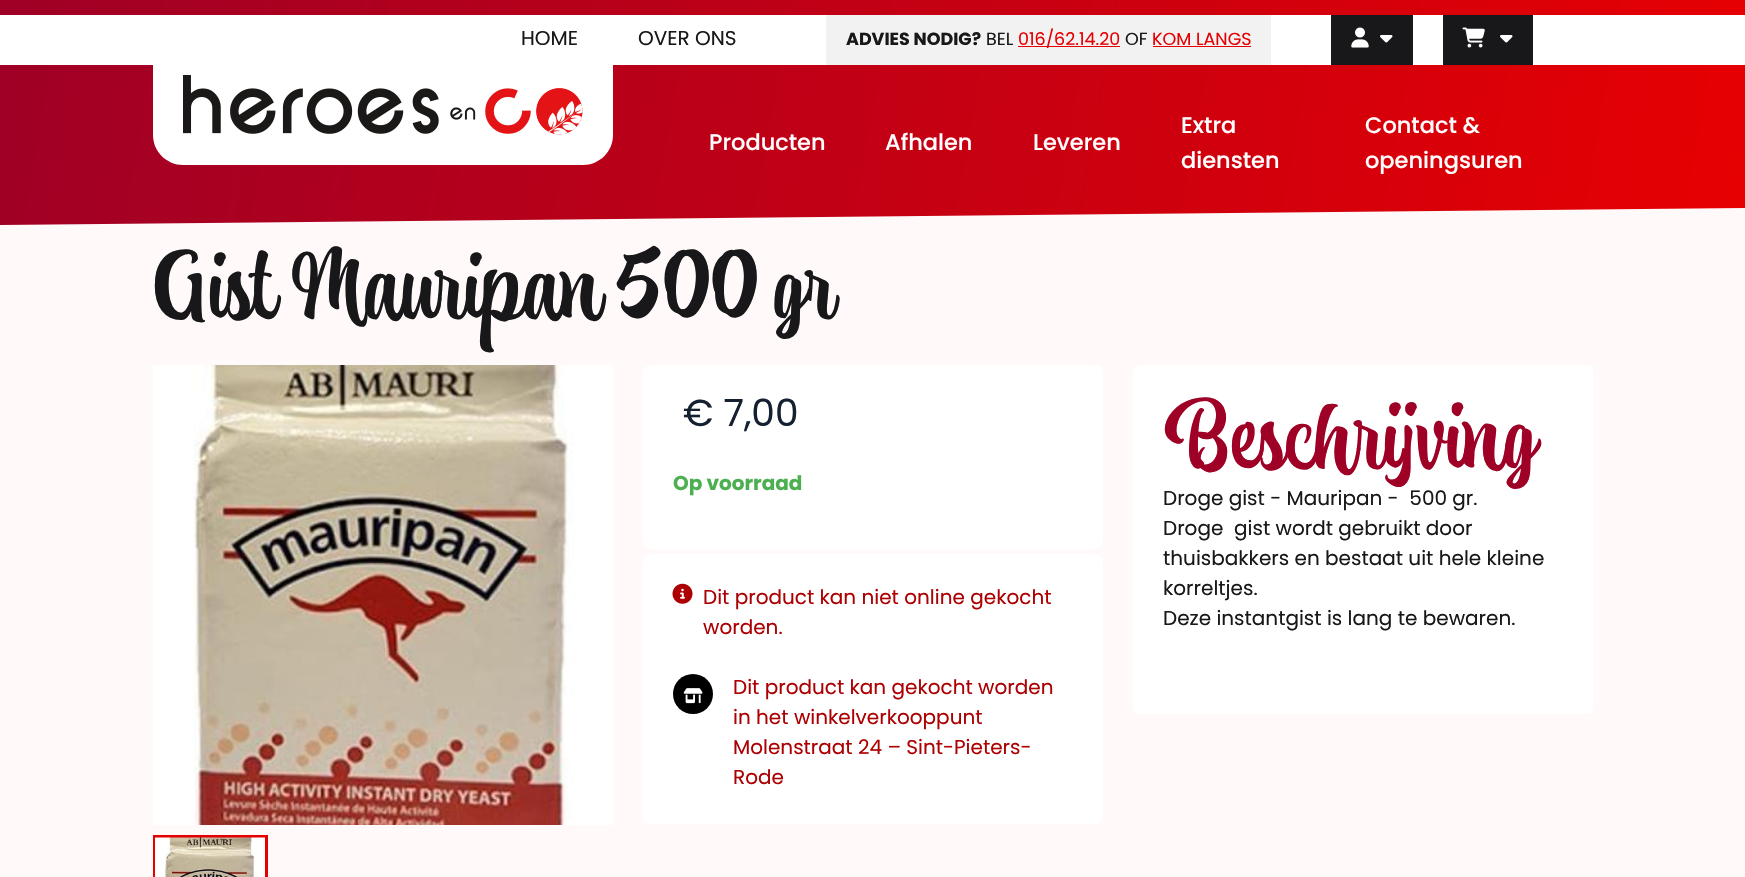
void draw(SkCanvas* canvas) {
    SkPaint paint;
    paint.setAntiAlias(true);
    canvas->clear(0xFFFFF9F9);
    {
        const SkColor colors[] = {0xFF9F0026, 0xFFE60002};
        const float stops[] = {0, 1};
        const SkPoint ends[] = {{7.1f, -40}, {1738, 265}};
        paint.setShader(SkGradientShader::MakeLinear(ends, colors, stops, 2, SkTileMode::kClamp));
        paint.setAlpha(255);
    }
    canvas->drawPath(SkPathBuilder().moveTo(0, 0).lineTo(0, 225).lineTo(1745, 208).lineTo(1745, 0).close().detach(), paint);
    paint.setShader(nullptr);
    paint.setColor(0xFFFFFFFF);
    canvas->drawRect(SkRect::MakeXYWH(0, 15, 1745, 50), paint);
    SkFont font1(fontMgr->matchFamilyStyle("Poppins", SkFontStyle::Normal()), 20);
    font1.setSubpixel(true);
    paint.setColor(0xFF18181A);
    canvas->drawString("HOME", 521, 45, font1, paint);
    canvas->drawString("OVER ONS", 638, 45, font1, paint);
    paint.setColor(0xFFF2F2F2);
    canvas->drawRect(SkRect::MakeXYWH(826, 15, 445, 50), paint);
    SkFont font2(fontMgr->matchFamilyStyle("Poppins", SkFontStyle::Bold()), 17.5f);
    font2.setSubpixel(true);
    paint.setColor(0xFF18181A);
    canvas->drawString("ADVIES NODIG?", 846, 45, font2, paint);
    SkFont font3(fontMgr->matchFamilyStyle("Poppins", SkFontStyle::Normal()), 17.5f);
    font3.setSubpixel(true);
    canvas->drawString("BEL", 986, 45, font3, paint);
    paint.setColor(0xFFE60002);
    canvas->drawRect(SkRect::MakeXYWH(1018, 46, 102, 1), paint);
    canvas->drawString("016/62.14.20", 1018, 45, font3, paint);
    paint.setColor(0xFF18181A);
    canvas->drawString("OF", 1125, 45, font3, paint);
    paint.setColor(0xFFE60002);
    canvas->drawString("KOM LANGS", 1152, 45, font3, paint);
    canvas->drawRect(SkRect::MakeXYWH(1153, 46, 98, 1), paint);
    paint.setColor(0xFF18181A);
    canvas->drawRect(SkRect::MakeXYWH(1331, 15, 82, 50), paint);
    canvas->drawImageRect(SkImages::DeferredFromEncodedData(SkData::MakeFromFileName("img1.png")), SkRect::MakeXYWH(1351, 27, 18, 21), SkSamplingOptions());
    canvas->drawImageRect(SkImages::DeferredFromEncodedData(SkData::MakeFromFileName("img2.png")), SkRect::MakeXYWH(1380, 35, 13, 8), SkSamplingOptions());
    canvas->drawRect(SkRect::MakeXYWH(1443, 15, 90, 50), paint);
    canvas->drawImageRect(SkImages::DeferredFromEncodedData(SkData::MakeFromFileName("img3.png")), SkRect::MakeXYWH(1462, 27, 23, 21), SkSamplingOptions());
    canvas->drawImageRect(SkImages::DeferredFromEncodedData(SkData::MakeFromFileName("img2.png")), SkRect::MakeXYWH(1500, 35, 13, 8), SkSamplingOptions());
    paint.setColor(0xFFFFFFFF);
    canvas->drawPath(SkPathBuilder().moveTo(153, 45).lineTo(613, 45).lineTo(613, 135).cubicTo(613, 151.5f, 599.5f, 165, 583, 165).lineTo(183, 165).cubicTo(166.5f, 165, 153, 151.5f, 153, 135).close().detach(), paint);
    canvas->drawImageRect(SkImages::DeferredFromEncodedData(SkData::MakeFromFileName("img4.png")), SkRect::MakeXYWH(183, 75, 400, 60), SkSamplingOptions());
    SkFont font4(fontMgr->matchFamilyStyle("Poppins", SkFontStyle(500, SkFontStyle::kNormal_Width, SkFontStyle::kUpright_Slant)), 22.5f);
    font4.setSubpixel(true);
    canvas->drawString("Producten", 709, 150, font4, paint);
    canvas->drawString("Afhalen", 885, 150, font4, paint);
    canvas->drawString("Leveren", 1033, 150, font4, paint);
    canvas->drawString("Extra", 1181, 133, font4, paint);
    canvas->drawString("diensten", 1181, 168, font4, paint);
    canvas->drawString("Contact &", 1365, 133, font4, paint);
    canvas->drawString("openingsuren", 1365, 168, font4, paint);
    SkFont font5(fontMgr->matchFamilyStyle("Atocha", SkFontStyle::Normal()), 90);
    font5.setSubpixel(true);
    paint.setColor(0xFF18181A);
    canvas->drawString("Gist Mauripan 500 gr", 153, 318, font5, paint);
    paint.setColor(0xFFFFFFFF);
    canvas->drawRect(SkRect::MakeXYWH(153, 365, 460, 460), paint);
    canvas->drawImageRect(SkImages::DeferredFromEncodedData(SkData::MakeFromFileName("img5.png")), SkRect::MakeXYWH(193, 365, 381, 460), SkSamplingOptions());
    paint.setStyle(SkPaint::kStroke_Style);
    paint.setStrokeWidth(3);
    paint.setColor(0xFFE60002);
    canvas->drawRect(SkRect::MakeXYWH(154.5f, 836.5f, 112, 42), paint);
    canvas->drawImageRect(SkImages::DeferredFromEncodedData(SkData::MakeFromFileName("img6.png")), SkRect::MakeXYWH(155, 837, 110, 40), SkSamplingOptions());
    paint.setStyle(SkPaint::kFill_Style);
    paint.setColor(0xFFFFFFFF);
    canvas->drawRoundRect(SkRect::MakeXYWH(643, 365, 460, 184), 8, 8, paint);
    SkFont font6(fontMgr->matchFamilyStyle("Poppins", SkFontStyle::Normal()), 37.5f);
    font6.setSubpixel(true);
    paint.setColor(0xFF152131);
    canvas->drawString("€ 7,00", 683, 426, font6, paint);
    SkFont font7(fontMgr->matchFamilyStyle("Poppins", SkFontStyle::Bold()), 20);
    font7.setSubpixel(true);
    paint.setColor(0xFF4CAF50);
    canvas->drawString("Op voorraad", 673, 490, font7, paint);
    paint.setColor(0xFFFFFFFF);
    canvas->drawRoundRect(SkRect::MakeXYWH(643, 554, 460, 270), 8, 8, paint);
    canvas->drawImageRect(SkImages::DeferredFromEncodedData(SkData::MakeFromFileName("img7.png")), SkRect::MakeXYWH(672, 583, 21, 21), SkSamplingOptions());
    paint.setColor(0xFFAD0002);
    canvas->drawString("Dit product kan niet online gekocht", 703, 604, font1, paint);
    canvas->drawString("worden.", 703, 634, font1, paint);
    paint.setColor(0xFF000000);
    canvas->drawCircle(693, 694, 20, paint);
    canvas->drawImageRect(SkImages::DeferredFromEncodedData(SkData::MakeFromFileName("img8.png")), SkRect::MakeXYWH(683, 688, 20, 16), SkSamplingOptions());
    paint.setColor(0xFFAD0002);
    canvas->drawString("Dit product kan gekocht worden", 733, 694, font1, paint);
    canvas->drawString("in het winkelverkooppunt", 733, 724, font1, paint);
    canvas->drawString("Molenstraat 24 – Sint-Pieters-", 733, 754, font1, paint);
    canvas->drawString("Rode", 733, 784, font1, paint);
    paint.setColor(0xFFFFFFFF);
    canvas->drawRoundRect(SkRect::MakeXYWH(1133, 365, 460, 349), 5, 5, paint);
    paint.setColor(0xFF9F0026);
    canvas->drawString("Beschrijving", 1163, 468, font5, paint);
    paint.setColor(0xFF18181A);
    canvas->drawString("Droge gist - Mauripan -  500 gr.", 1163, 505, font1, paint);
    canvas->drawString("Droge  gist wordt gebruikt door", 1163, 535, font1, paint);
    canvas->drawString("thuisbakkers en bestaat uit hele kleine", 1163, 565, font1, paint);
    canvas->drawString("korreltjes.", 1163, 595, font1, paint);
    canvas->drawString("Deze instantgist is lang te bewaren.", 1163, 625, font1, paint);
}
